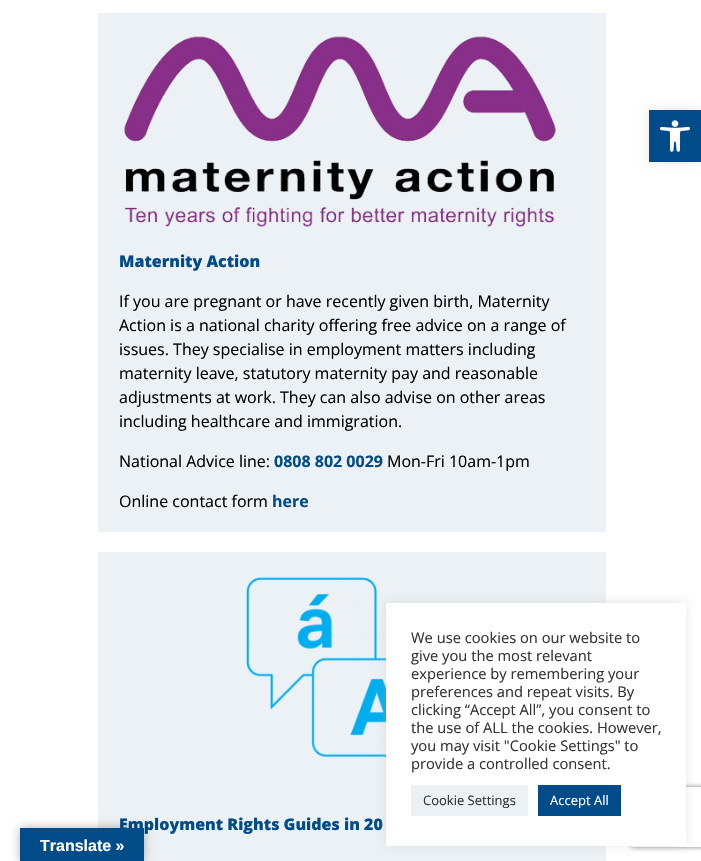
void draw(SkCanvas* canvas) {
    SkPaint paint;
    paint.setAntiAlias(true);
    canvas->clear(0xFFFFFFFF);
    paint.setColor(0x1A000000);
    paint.setMaskFilter(SkMaskFilter::MakeBlur(kNormal_SkBlurStyle, 5));
    canvas->drawRect(SkRect::MakeXYWH(649, 110, 52, 52), paint);
    paint.setMaskFilter(nullptr);
    paint.setColor(0xFF004B88);
    canvas->drawRect(SkRect::MakeXYWH(649, 110, 52, 52), paint);
    canvas->drawImageRect(SkImages::DeferredFromEncodedData(SkData::MakeFromFileName("img1.png")), SkRect::MakeXYWH(660, 120, 30, 32), SkSamplingOptions());
    paint.setColor(0xFFECF1F5);
    canvas->drawRect(SkRect::MakeXYWH(98, 13, 508, 519), paint);
    canvas->drawImageRect(SkImages::DeferredFromEncodedData(SkData::MakeFromFileName("img2.png")), SkRect::MakeXYWH(124, 36, 432, 191), SkSamplingOptions());
    SkFont font1(fontMgr->matchFamilyStyle("Open Sans", SkFontStyle(800, SkFontStyle::kNormal_Width, SkFontStyle::kUpright_Slant)), 16);
    font1.setSubpixel(true);
    paint.setColor(0xFF004B88);
    canvas->drawString("Maternity Action", 119, 267, font1, paint);
    SkFont font2(fontMgr->matchFamilyStyle("Open Sans", SkFontStyle::Normal()), 16);
    font2.setSubpixel(true);
    paint.setColor(0xFF000000);
    canvas->drawString("If you are pregnant or have recently given birth, Maternity", 119, 307, font2, paint);
    canvas->drawString("Action is a national charity offering free advice on a range of", 119, 331, font2, paint);
    canvas->drawString("issues. They specialise in employment matters including", 119, 355, font2, paint);
    canvas->drawString("maternity leave, statutory maternity pay and reasonable", 119, 379, font2, paint);
    canvas->drawString("adjustments at work. They can also advise on other areas", 119, 403, font2, paint);
    canvas->drawString("including healthcare and immigration.", 119, 427, font2, paint);
    canvas->drawString("National Advice line:", 119, 467, font2, paint);
    SkFont font3(fontMgr->matchFamilyStyle("Open Sans", SkFontStyle::Bold()), 16);
    font3.setSubpixel(true);
    paint.setColor(0xFF004B88);
    canvas->drawString("0808 802 0029", 274, 467, font3, paint);
    paint.setColor(0xFF000000);
    canvas->drawString("Mon-Fri 10am-1pm", 387, 467, font2, paint);
    canvas->drawString("Online contact form", 119, 507, font2, paint);
    paint.setColor(0xFF004B88);
    canvas->drawString("here", 272, 507, font3, paint);
    paint.setColor(0xFFECF1F5);
    canvas->drawRect(SkRect::MakeXYWH(98, 552, 508, 309), paint);
    canvas->drawImageRect(SkImages::DeferredFromEncodedData(SkData::MakeFromFileName("img3.png")), SkRect::MakeXYWH(246, 577, 140, 182), SkSamplingOptions());
    paint.setColor(0xFF004B88);
    canvas->drawString("Employment Rights Guides in 20", 119, 830, font1, paint);
    canvas->save();
    canvas->clipPath(SkPathBuilder(SkPathFillType::kEvenOdd).moveTo(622, 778).lineTo(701, 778).lineTo(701, 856).lineTo(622, 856).close().moveTo(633, 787).lineTo(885, 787).cubicTo(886, 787, 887, 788, 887, 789).lineTo(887, 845).cubicTo(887, 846, 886, 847, 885, 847).lineTo(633, 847).cubicTo(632, 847, 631, 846, 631, 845).lineTo(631, 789).cubicTo(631, 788, 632, 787, 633, 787).close().detach(), true);
    paint.setColor(0xFF808080);
    paint.setMaskFilter(SkMaskFilter::MakeBlur(kNormal_SkBlurStyle, 2.5f));
    canvas->drawRoundRect(SkRect::MakeXYWH(631, 787, 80, 60), 2, 2, paint);
    paint.setMaskFilter(nullptr);
    canvas->restore();
    paint.setColor(0x4DACABAB);
    paint.setMaskFilter(SkMaskFilter::MakeBlur(kNormal_SkBlurStyle, 5));
    canvas->drawRect(SkRect::MakeXYWH(386, 602, 300, 243), paint);
    paint.setMaskFilter(nullptr);
    paint.setColor(0xFFFFFFFF);
    canvas->drawRect(SkRect::MakeXYWH(386, 603, 300, 243), paint);
    SkFont font4(fontMgr->matchFamilyStyle("Open Sans", SkFontStyle::Normal()), 14.7f);
    font4.setSubpixel(true);
    paint.setColor(0xFF333333);
    canvas->drawString("We use cookies on our website to", 411, 643, font4, paint);
    canvas->drawString("give you the most relevant", 411, 661, font4, paint);
    canvas->drawString("experience by remembering your", 411, 679, font4, paint);
    canvas->drawString("preferences and repeat visits. By", 411, 697, font4, paint);
    canvas->drawString("clicking “Accept All”, you consent to", 411, 715, font4, paint);
    canvas->drawString("the use of ALL the cookies. However,", 411, 733, font4, paint);
    canvas->drawString("you may visit \"Cookie Settings\" to", 411, 751, font4, paint);
    canvas->drawString("provide a controlled consent.", 411, 769, font4, paint);
    paint.setColor(0xFFECF1F5);
    canvas->drawRect(SkRect::MakeXYWH(411, 785, 117, 31), paint);
    SkFont font5(fontMgr->matchFamilyStyle("Open Sans", SkFontStyle::Normal()), 13);
    font5.setSubpixel(true);
    paint.setColor(0xFF333333);
    canvas->drawString("Cookie Settings", 423, 805, font5, paint);
    paint.setColor(0xFF004B88);
    canvas->drawRect(SkRect::MakeXYWH(538, 785, 83, 31), paint);
    paint.setColor(0xFFFFFFFF);
    canvas->drawString("Accept All", 550, 805, font5, paint);
    paint.setColor(0x4D000000);
    paint.setMaskFilter(SkMaskFilter::MakeBlur(kNormal_SkBlurStyle, 4.5f));
    canvas->drawRect(SkRect::MakeXYWH(20, 828, 124, 33), paint);
    paint.setMaskFilter(nullptr);
    paint.setColor(0xFF004B88);
    canvas->drawRect(SkRect::MakeXYWH(20, 828, 124, 33), paint);
    SkFont font6(fontMgr->matchFamilyStyle("Liberation Sans", SkFontStyle::Bold()), 16);
    font6.setSubpixel(true);
    paint.setColor(0xFFFFFFFF);
    canvas->drawString("Translate »", 40, 851, font6, paint);
}
